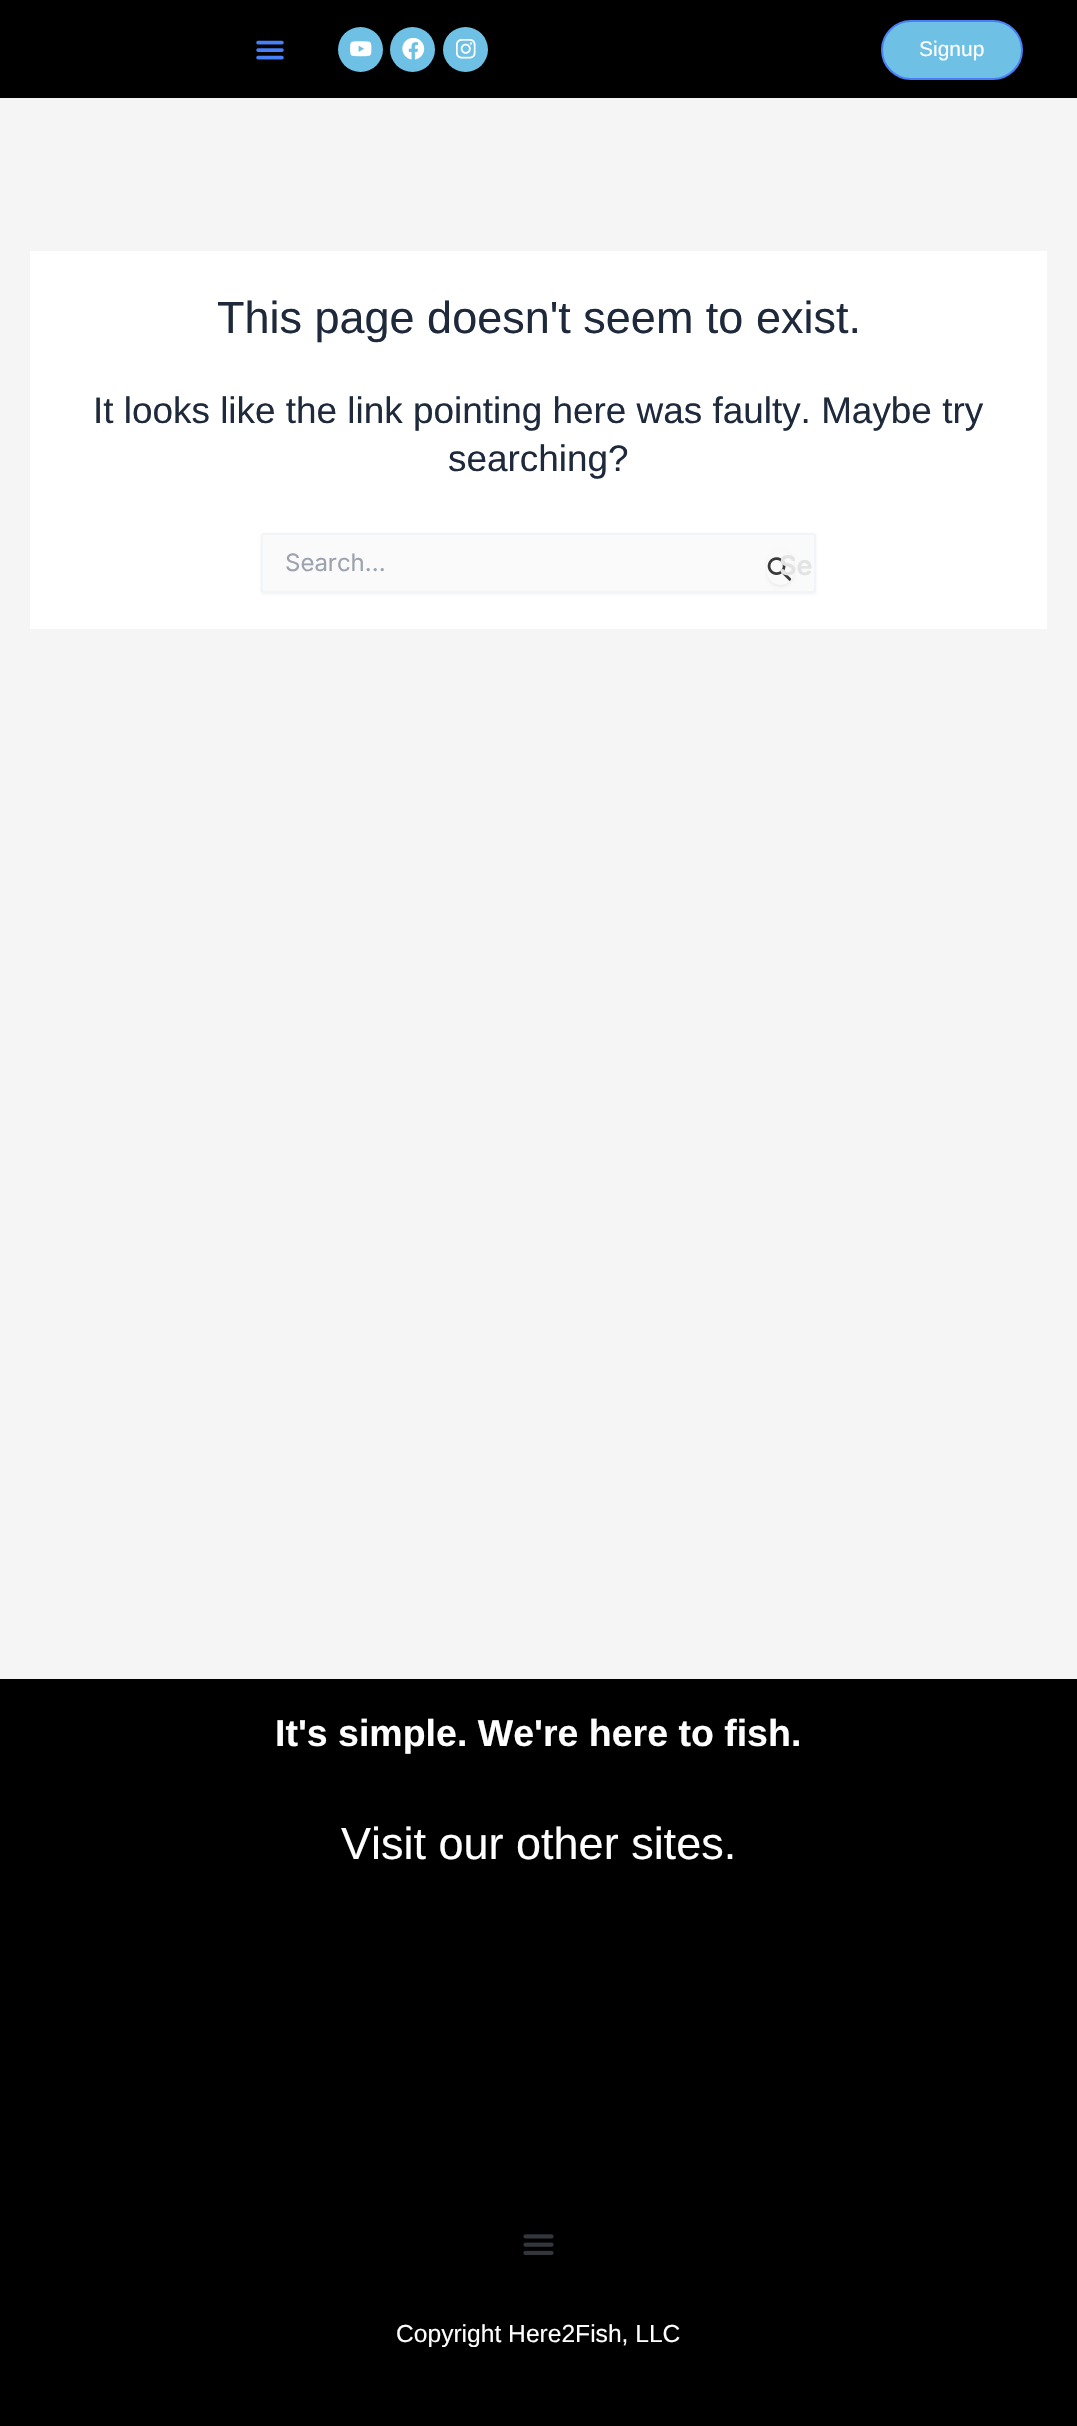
void draw(SkCanvas* canvas) {
    SkPaint paint;
    paint.setAntiAlias(true);
    canvas->clear(0xFFF5F5F5);
    paint.setColor(0xFF000000);
    canvas->drawRect(SkRect::MakeXYWH(0, 0, 1077, 98), paint);
    canvas->drawImageRect(SkImages::DeferredFromEncodedData(SkData::MakeFromFileName("img1.png")), SkRect::MakeXYWH(256, 40, 28, 20), SkSamplingOptions());
    paint.setColor(0xFF6EC1E4);
    canvas->drawCircle(360.5f, 49.5f, 22.5f, paint);
    canvas->drawImageRect(SkImages::DeferredFromEncodedData(SkData::MakeFromFileName("img2.png")), SkRect::MakeXYWH(350, 41, 22, 16), SkSamplingOptions());
    canvas->drawCircle(412.5f, 49.5f, 22.5f, paint);
    canvas->drawImageRect(SkImages::DeferredFromEncodedData(SkData::MakeFromFileName("img3.png")), SkRect::MakeXYWH(402, 38, 23, 22), SkSamplingOptions());
    canvas->drawCircle(465.5f, 49.5f, 22.5f, paint);
    canvas->drawImageRect(SkImages::DeferredFromEncodedData(SkData::MakeFromFileName("img4.png")), SkRect::MakeXYWH(456, 39, 20, 20), SkSamplingOptions());
    canvas->drawRoundRect(SkRect::MakeXYWH(882, 21, 140, 58), 29, 29, paint);
    paint.setStyle(SkPaint::kStroke_Style);
    paint.setStrokeWidth(2);
    paint.setColor(0xFF467FF7);
    canvas->drawRoundRect(SkRect::MakeXYWH(882, 21, 140, 58), 29, 29, paint);
    SkFont font1(fontMgr->matchFamilyStyle("Liberation Sans", SkFontStyle::Normal()), 21);
    font1.setSubpixel(true);
    paint.setStyle(SkPaint::kFill_Style);
    paint.setColor(0xFFFFFFFF);
    canvas->drawString("Signup", 919, 56, font1, paint);
    canvas->drawRect(SkRect::MakeXYWH(30, 251, 1017, 378), paint);
    SkFont font2(fontMgr->matchFamilyStyle("Liberation Sans", SkFontStyle::Normal()), 45);
    font2.setSubpixel(true);
    paint.setColor(0xFF1E293B);
    canvas->drawString("This page doesn't seem to exist.", 217, 333, font2, paint);
    SkFont font3(fontMgr->matchFamilyStyle("Liberation Sans", SkFontStyle::Normal()), 36.9f);
    font3.setSubpixel(true);
    canvas->drawString("It looks like the link pointing here was faulty. Maybe try", 93, 423, font3, paint);
    canvas->drawString("searching?", 448, 471, font3, paint);
    paint.setColor(0x0D000000);
    paint.setMaskFilter(SkMaskFilter::MakeBlur(kNormal_SkBlurStyle, 1.5f));
    canvas->drawRoundRect(SkRect::MakeXYWH(261, 534, 555, 60), 3, 3, paint);
    paint.setMaskFilter(nullptr);
    paint.setColor(0xFFFAFAFA);
    canvas->drawRoundRect(SkRect::MakeXYWH(262, 534, 553, 58), 2, 2, paint);
    paint.setStyle(SkPaint::kStroke_Style);
    paint.setColor(0xFFF2F5F7);
    canvas->drawRoundRect(SkRect::MakeXYWH(262, 534, 553, 58), 2, 2, paint);
    SkFont font4(fontMgr->matchFamilyStyle("Inter", SkFontStyle::Normal()), 24);
    font4.setSubpixel(true);
    paint.setStyle(SkPaint::kFill_Style);
    paint.setColor(0xFF9CA3AF);
    canvas->drawString("Search...", 285, 571, font4, paint);
    canvas->save();
    canvas->clipPath(SkPathBuilder(SkPathFillType::kEvenOdd).moveTo(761, 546).lineTo(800, 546).lineTo(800, 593).lineTo(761, 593).close().moveTo(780.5f, 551).cubicTo(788, 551, 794, 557, 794, 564.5f).lineTo(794, 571.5f).cubicTo(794, 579, 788, 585, 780.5f, 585).cubicTo(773, 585, 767, 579, 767, 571.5f).lineTo(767, 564.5f).cubicTo(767, 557, 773, 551, 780.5f, 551).close().detach(), true);
    paint.setColor(0x0D000000);
    paint.setMaskFilter(SkMaskFilter::MakeBlur(kNormal_SkBlurStyle, 1.5f));
    canvas->drawRoundRect(SkRect::MakeXYWH(767, 552, 27, 35), 13.5f, 13.5f, paint);
    paint.setMaskFilter(nullptr);
    canvas->restore();
    canvas->drawImageRect(SkImages::DeferredFromEncodedData(SkData::MakeFromFileName("img5.png")), SkRect::MakeXYWH(767, 557, 24, 25), SkSamplingOptions());
    SkFont font5(fontMgr->matchFamilyStyle("Inter", SkFontStyle(600, SkFontStyle::kNormal_Width, SkFontStyle::kUpright_Slant)), 27);
    font5.setSubpixel(true);
    paint.setColor(0xFFE3E3E3);
    canvas->drawString("Se", 779, 575, font5, paint);
    paint.setColor(0xFF000000);
    canvas->drawRect(SkRect::MakeXYWH(0, 1679, 1077, 747), paint);
    SkFont font6(fontMgr->matchFamilyStyle("Liberation Sans", SkFontStyle::Bold()), 37.5f);
    font6.setSubpixel(true);
    paint.setColor(0xFFFFFFFF);
    canvas->drawString("It's simple. We're here to fish.", 275, 1746, font6, paint);
    canvas->drawString("Visit our other sites.", 341, 1859, font2, paint);
    canvas->drawImageRect(SkImages::DeferredFromEncodedData(SkData::MakeFromFileName("img6.png")), SkRect::MakeXYWH(523, 2234, 31, 21), SkSamplingOptions());
    SkFont font7(fontMgr->matchFamilyStyle("Liberation Sans", SkFontStyle::Normal()), 24.6f);
    font7.setSubpixel(true);
    canvas->drawString("Copyright Here2Fish, LLC", 396, 2342, font7, paint);
}
